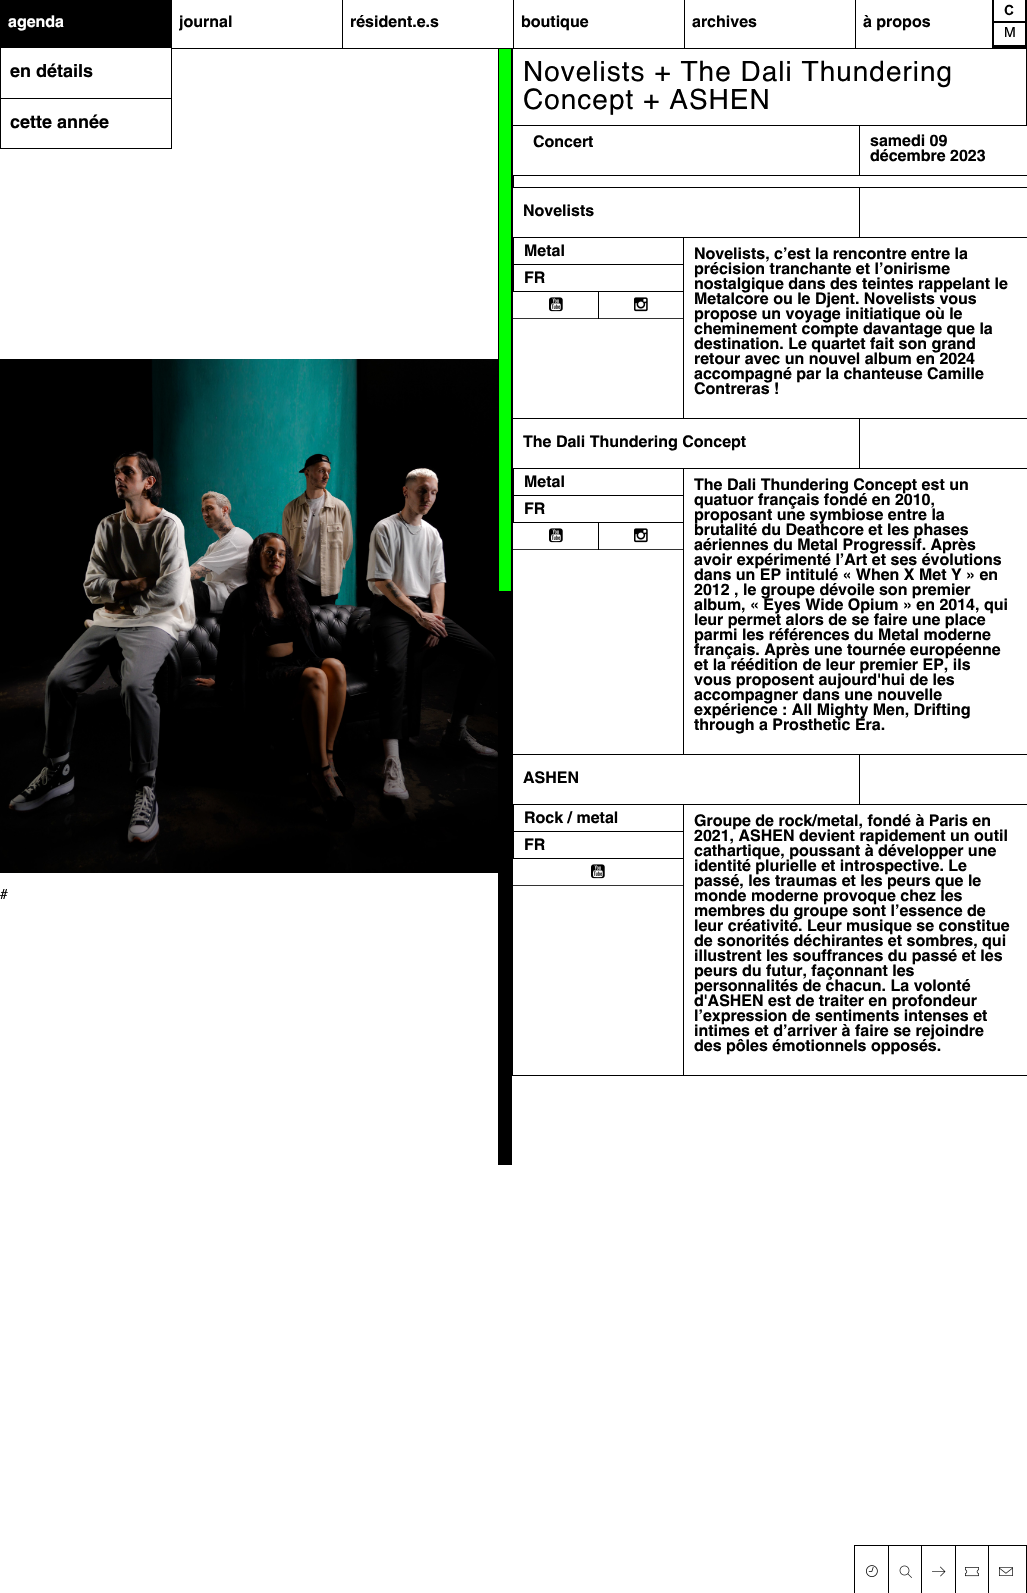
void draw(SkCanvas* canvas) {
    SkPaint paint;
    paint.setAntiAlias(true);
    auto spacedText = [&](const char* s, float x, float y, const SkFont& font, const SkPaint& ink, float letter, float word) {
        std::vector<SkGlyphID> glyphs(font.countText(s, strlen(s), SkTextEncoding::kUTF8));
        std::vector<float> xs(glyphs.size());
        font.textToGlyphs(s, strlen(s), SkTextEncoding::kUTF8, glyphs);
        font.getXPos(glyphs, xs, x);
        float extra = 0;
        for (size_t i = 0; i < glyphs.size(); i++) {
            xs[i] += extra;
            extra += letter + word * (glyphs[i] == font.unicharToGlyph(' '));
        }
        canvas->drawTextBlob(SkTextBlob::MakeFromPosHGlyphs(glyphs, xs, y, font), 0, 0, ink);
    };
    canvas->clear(0xFFFFFFFF);
    paint.setColor(0xFF000000);
    canvas->drawRect(SkRect::MakeXYWH(0, 0, 171, 47), paint);
    SkFont font1(fontMgr->matchFamilyStyle("Helvetica", SkFontStyle::Bold()), 16);
    font1.setSubpixel(true);
    paint.setColor(0xFFFFFFFF);
    canvas->drawString("agenda", 8, 27, font1, paint);
    paint.setColor(0xFF000000);
    canvas->drawRect(SkRect::MakeXYWH(171, 48, 856, 1), paint);
    canvas->drawRect(SkRect::MakeXYWH(171, 0, 1, 49), paint);
    paint.setStyle(SkPaint::kStroke_Style);
    paint.setStrokeWidth(1);
    canvas->drawRect(SkRect::MakeXYWH(0.5f, 47.5f, 171, 101), paint);
    paint.setStyle(SkPaint::kFill_Style);
    canvas->drawRect(SkRect::MakeXYWH(1, 98, 170, 1), paint);
    SkFont font2(fontMgr->matchFamilyStyle("Helvetica", SkFontStyle::Bold()), 18);
    font2.setSubpixel(true);
    canvas->drawString("en détails", 10, 77, font2, paint);
    canvas->drawString("cette année", 10, 128, font2, paint);
    canvas->drawString("journal", 179, 27, font1, paint);
    canvas->drawRect(SkRect::MakeXYWH(342, 0, 1, 49), paint);
    canvas->drawString("résident.e.s", 350, 27, font1, paint);
    canvas->drawRect(SkRect::MakeXYWH(513, 0, 1, 49), paint);
    canvas->drawString("boutique", 521, 27, font1, paint);
    canvas->drawRect(SkRect::MakeXYWH(684, 0, 1, 49), paint);
    canvas->drawString("archives", 692, 27, font1, paint);
    canvas->drawRect(SkRect::MakeXYWH(855, 0, 1, 49), paint);
    canvas->drawString("à propos", 863, 27, font1, paint);
    canvas->drawRect(SkRect::MakeXYWH(1025, 0, 2, 48), paint);
    canvas->drawRect(SkRect::MakeXYWH(992, 21, 35, 2), paint);
    canvas->drawRect(SkRect::MakeXYWH(992, 0, 2, 23), paint);
    SkFont font3(fontMgr->matchFamilyStyle("Arial", SkFontStyle::Bold()), 14);
    font3.setSubpixel(true);
    canvas->drawString("C", 1004, 15, font3, paint);
    canvas->drawRect(SkRect::MakeXYWH(992, 45, 35, 3), paint);
    canvas->drawRect(SkRect::MakeXYWH(992, 23, 2, 25), paint);
    SkFont font4(fontMgr->matchFamilyStyle("Helvetica", SkFontStyle::Normal()), 14);
    font4.setSubpixel(true);
    canvas->drawString("M", 1004, 37, font4, paint);
    canvas->drawImageRect(SkImages::DeferredFromEncodedData(SkData::MakeFromFileName("img1.png")), SkRect::MakeXYWH(0, 359, 498, 514), SkSamplingOptions());
    canvas->drawString("#", 0, 899, font4, paint);
    canvas->drawRect(SkRect::MakeXYWH(498, 49, 14, 1116), paint);
    paint.setColor(0xFF00FF00);
    canvas->drawRect(SkRect::MakeXYWH(499, 49, 12, 542), paint);
    paint.setColor(0xFF000000);
    canvas->drawRect(SkRect::MakeXYWH(1026, 48, 1, 78), paint);
    canvas->drawRect(SkRect::MakeXYWH(512, 125, 515, 1), paint);
    canvas->drawRect(SkRect::MakeXYWH(512, 48, 1, 78), paint);
    SkFont font5(fontMgr->matchFamilyStyle("Helvetica", SkFontStyle::Normal()), 28);
    font5.setSubpixel(true);
    spacedText("Novelists + The Dali Thundering", 523, 81, font5, paint, 1, 0);
    spacedText("Concept + ASHEN", 523, 109, font5, paint, 1, 0);
    canvas->drawRect(SkRect::MakeXYWH(859, 175, 168, 1), paint);
    canvas->drawRect(SkRect::MakeXYWH(859, 126, 1, 50), paint);
    canvas->drawRect(SkRect::MakeXYWH(512, 175, 348, 1), paint);
    canvas->drawRect(SkRect::MakeXYWH(512, 126, 1, 50), paint);
    canvas->drawString("Concert", 533, 147, font1, paint);
    canvas->drawString("samedi 09", 870, 146, font1, paint);
    canvas->drawString("décembre 2023", 870, 161, font1, paint);
    canvas->drawRect(SkRect::MakeXYWH(513, 175, 1, 13), paint);
    canvas->drawRect(SkRect::MakeXYWH(512, 187, 515, 1), paint);
    canvas->drawRect(SkRect::MakeXYWH(512, 175, 1, 13), paint);
    canvas->drawRect(SkRect::MakeXYWH(859, 237, 168, 1), paint);
    canvas->drawRect(SkRect::MakeXYWH(859, 188, 1, 50), paint);
    canvas->drawRect(SkRect::MakeXYWH(512, 237, 348, 1), paint);
    canvas->drawRect(SkRect::MakeXYWH(512, 188, 1, 50), paint);
    canvas->drawString("Novelists", 523, 216, font1, paint);
    canvas->drawRect(SkRect::MakeXYWH(683, 418, 344, 1), paint);
    canvas->drawRect(SkRect::MakeXYWH(513, 264, 171, 1), paint);
    canvas->drawRect(SkRect::MakeXYWH(513, 291, 171, 1), paint);
    paint.setColor(0xFF333333);
    canvas->drawRect(SkRect::MakeXYWH(513, 318, 171, 1), paint);
    paint.setColor(0xFF000000);
    canvas->drawRect(SkRect::MakeXYWH(683, 238, 1, 181), paint);
    canvas->drawRect(SkRect::MakeXYWH(512, 418, 172, 1), paint);
    canvas->drawRect(SkRect::MakeXYWH(512, 238, 1, 181), paint);
    canvas->drawString("Metal", 524, 256, font1, paint);
    canvas->drawRect(SkRect::MakeXYWH(513, 238, 1, 54), paint);
    canvas->drawString("FR", 524, 283, font1, paint);
    canvas->drawImageRect(SkImages::DeferredFromEncodedData(SkData::MakeFromFileName("img2.png")), SkRect::MakeXYWH(549, 297, 14, 15), SkSamplingOptions());
    canvas->drawRect(SkRect::MakeXYWH(598, 292, 1, 27), paint);
    canvas->drawImageRect(SkImages::DeferredFromEncodedData(SkData::MakeFromFileName("img3.png")), SkRect::MakeXYWH(634, 297, 14, 15), SkSamplingOptions());
    canvas->drawString("Novelists, c’est la rencontre entre la", 694, 259, font1, paint);
    canvas->drawString("précision tranchante et l’onirisme", 694, 274, font1, paint);
    canvas->drawString("nostalgique dans des teintes rappelant le", 694, 289, font1, paint);
    canvas->drawString("Metalcore ou le Djent. Novelists vous", 694, 304, font1, paint);
    canvas->drawString("propose un voyage initiatique où le", 694, 319, font1, paint);
    canvas->drawString("cheminement compte davantage que la", 694, 334, font1, paint);
    canvas->drawString("destination. Le quartet fait son grand", 694, 349, font1, paint);
    canvas->drawString("retour avec un nouvel album en 2024", 694, 364, font1, paint);
    canvas->drawString("accompagné par la chanteuse Camille", 694, 379, font1, paint);
    canvas->drawString("Contreras !", 694, 394, font1, paint);
    canvas->drawRect(SkRect::MakeXYWH(859, 468, 168, 1), paint);
    canvas->drawRect(SkRect::MakeXYWH(859, 419, 1, 50), paint);
    canvas->drawRect(SkRect::MakeXYWH(512, 468, 348, 1), paint);
    canvas->drawRect(SkRect::MakeXYWH(512, 419, 1, 50), paint);
    canvas->drawString("The Dali Thundering Concept", 523, 447, font1, paint);
    canvas->drawRect(SkRect::MakeXYWH(683, 754, 344, 1), paint);
    canvas->drawRect(SkRect::MakeXYWH(513, 495, 171, 1), paint);
    canvas->drawRect(SkRect::MakeXYWH(513, 522, 171, 1), paint);
    paint.setColor(0xFF333333);
    canvas->drawRect(SkRect::MakeXYWH(513, 549, 171, 1), paint);
    paint.setColor(0xFF000000);
    canvas->drawRect(SkRect::MakeXYWH(683, 469, 1, 286), paint);
    canvas->drawRect(SkRect::MakeXYWH(512, 754, 172, 1), paint);
    canvas->drawRect(SkRect::MakeXYWH(512, 469, 1, 286), paint);
    canvas->drawString("Metal", 524, 487, font1, paint);
    canvas->drawRect(SkRect::MakeXYWH(513, 469, 1, 54), paint);
    canvas->drawString("FR", 524, 514, font1, paint);
    canvas->drawImageRect(SkImages::DeferredFromEncodedData(SkData::MakeFromFileName("img2.png")), SkRect::MakeXYWH(549, 528, 14, 15), SkSamplingOptions());
    canvas->drawRect(SkRect::MakeXYWH(598, 523, 1, 27), paint);
    canvas->drawImageRect(SkImages::DeferredFromEncodedData(SkData::MakeFromFileName("img3.png")), SkRect::MakeXYWH(634, 528, 14, 15), SkSamplingOptions());
    canvas->drawString("The Dali Thundering Concept est un", 694, 490, font1, paint);
    canvas->drawString("quatuor français fondé en 2010,", 694, 505, font1, paint);
    canvas->drawString("proposant une symbiose entre la", 694, 520, font1, paint);
    canvas->drawString("brutalité du Deathcore et les phases", 694, 535, font1, paint);
    canvas->drawString("aériennes du Metal Progressif. Après", 694, 550, font1, paint);
    canvas->drawString("avoir expérimenté l’Art et ses évolutions", 694, 565, font1, paint);
    canvas->drawString("dans un EP intitulé « When X Met Y » en", 694, 580, font1, paint);
    canvas->drawString("2012 , le groupe dévoile son premier", 694, 595, font1, paint);
    canvas->drawString("album, « Eyes Wide Opium » en 2014, qui", 694, 610, font1, paint);
    canvas->drawString("leur permet alors de se faire une place", 694, 625, font1, paint);
    canvas->drawString("parmi les références du Metal moderne", 694, 640, font1, paint);
    canvas->drawString("français. Après une tournée européenne", 694, 655, font1, paint);
    canvas->drawString("et la réédition de leur premier EP, ils", 694, 670, font1, paint);
    canvas->drawString("vous proposent aujourd'hui de les", 694, 685, font1, paint);
    canvas->drawString("accompagner dans une nouvelle", 694, 700, font1, paint);
    canvas->drawString("expérience : All Mighty Men, Drifting", 694, 715, font1, paint);
    canvas->drawString("through a Prosthetic Era.", 694, 730, font1, paint);
    canvas->drawRect(SkRect::MakeXYWH(859, 804, 168, 1), paint);
    canvas->drawRect(SkRect::MakeXYWH(859, 755, 1, 50), paint);
    canvas->drawRect(SkRect::MakeXYWH(512, 804, 348, 1), paint);
    canvas->drawRect(SkRect::MakeXYWH(512, 755, 1, 50), paint);
    canvas->drawString("ASHEN", 523, 783, font1, paint);
    canvas->drawRect(SkRect::MakeXYWH(683, 1075, 344, 1), paint);
    canvas->drawRect(SkRect::MakeXYWH(513, 831, 171, 1), paint);
    canvas->drawRect(SkRect::MakeXYWH(513, 858, 171, 1), paint);
    paint.setColor(0xFF333333);
    canvas->drawRect(SkRect::MakeXYWH(513, 885, 171, 1), paint);
    paint.setColor(0xFF000000);
    canvas->drawRect(SkRect::MakeXYWH(683, 805, 1, 271), paint);
    canvas->drawRect(SkRect::MakeXYWH(512, 1075, 172, 1), paint);
    canvas->drawRect(SkRect::MakeXYWH(512, 805, 1, 271), paint);
    canvas->drawString("Rock / metal", 524, 823, font1, paint);
    canvas->drawRect(SkRect::MakeXYWH(513, 805, 1, 54), paint);
    canvas->drawString("FR", 524, 850, font1, paint);
    canvas->drawImageRect(SkImages::DeferredFromEncodedData(SkData::MakeFromFileName("img2.png")), SkRect::MakeXYWH(591, 864, 14, 15), SkSamplingOptions());
    canvas->drawString("Groupe de rock/metal, fondé à Paris en", 694, 826, font1, paint);
    canvas->drawString("2021, ASHEN devient rapidement un outil", 694, 841, font1, paint);
    canvas->drawString("cathartique, poussant à développer une", 694, 856, font1, paint);
    canvas->drawString("identité plurielle et introspective. Le", 694, 871, font1, paint);
    canvas->drawString("passé, les traumas et les peurs que le", 694, 886, font1, paint);
    canvas->drawString("monde moderne provoque chez les", 694, 901, font1, paint);
    canvas->drawString("membres du groupe sont l’essence de", 694, 916, font1, paint);
    canvas->drawString("leur créativité. Leur musique se constitue", 694, 931, font1, paint);
    canvas->drawString("de sonorités déchirantes et sombres, qui", 694, 946, font1, paint);
    canvas->drawString("illustrent les souffrances du passé et les", 694, 961, font1, paint);
    canvas->drawString("peurs du futur, façonnant les", 694, 976, font1, paint);
    canvas->drawString("personnalités de chacun. La volonté", 694, 991, font1, paint);
    canvas->drawString("d'ASHEN est de traiter en profondeur", 694, 1006, font1, paint);
    canvas->drawString("l’expression de sentiments intenses et", 694, 1021, font1, paint);
    canvas->drawString("intimes et d’arriver à faire se rejoindre", 694, 1036, font1, paint);
    canvas->drawString("des pôles émotionnels opposés.", 694, 1051, font1, paint);
    canvas->drawRect(SkRect::MakeXYWH(854, 1545, 173, 1), paint);
    canvas->drawRect(SkRect::MakeXYWH(1026, 1545, 1, 48), paint);
    canvas->drawRect(SkRect::MakeXYWH(854, 1546, 1, 47), paint);
    canvas->drawImageRect(SkImages::DeferredFromEncodedData(SkData::MakeFromFileName("img4.png")), SkRect::MakeXYWH(866, 1565, 12, 12), SkSamplingOptions());
    canvas->drawRect(SkRect::MakeXYWH(888, 1546, 1, 47), paint);
    canvas->drawImageRect(SkImages::DeferredFromEncodedData(SkData::MakeFromFileName("img5.png")), SkRect::MakeXYWH(899, 1565, 13, 13), SkSamplingOptions());
    canvas->drawRect(SkRect::MakeXYWH(921, 1546, 1, 47), paint);
    canvas->drawImageRect(SkImages::DeferredFromEncodedData(SkData::MakeFromFileName("img6.png")), SkRect::MakeXYWH(932, 1566, 14, 11), SkSamplingOptions());
    canvas->drawRect(SkRect::MakeXYWH(955, 1546, 1, 47), paint);
    canvas->drawImageRect(SkImages::DeferredFromEncodedData(SkData::MakeFromFileName("img7.png")), SkRect::MakeXYWH(965, 1567, 14, 10), SkSamplingOptions());
    canvas->drawRect(SkRect::MakeXYWH(988, 1546, 1, 47), paint);
    canvas->drawImageRect(SkImages::DeferredFromEncodedData(SkData::MakeFromFileName("img8.png")), SkRect::MakeXYWH(999, 1567, 14, 9), SkSamplingOptions());
}
